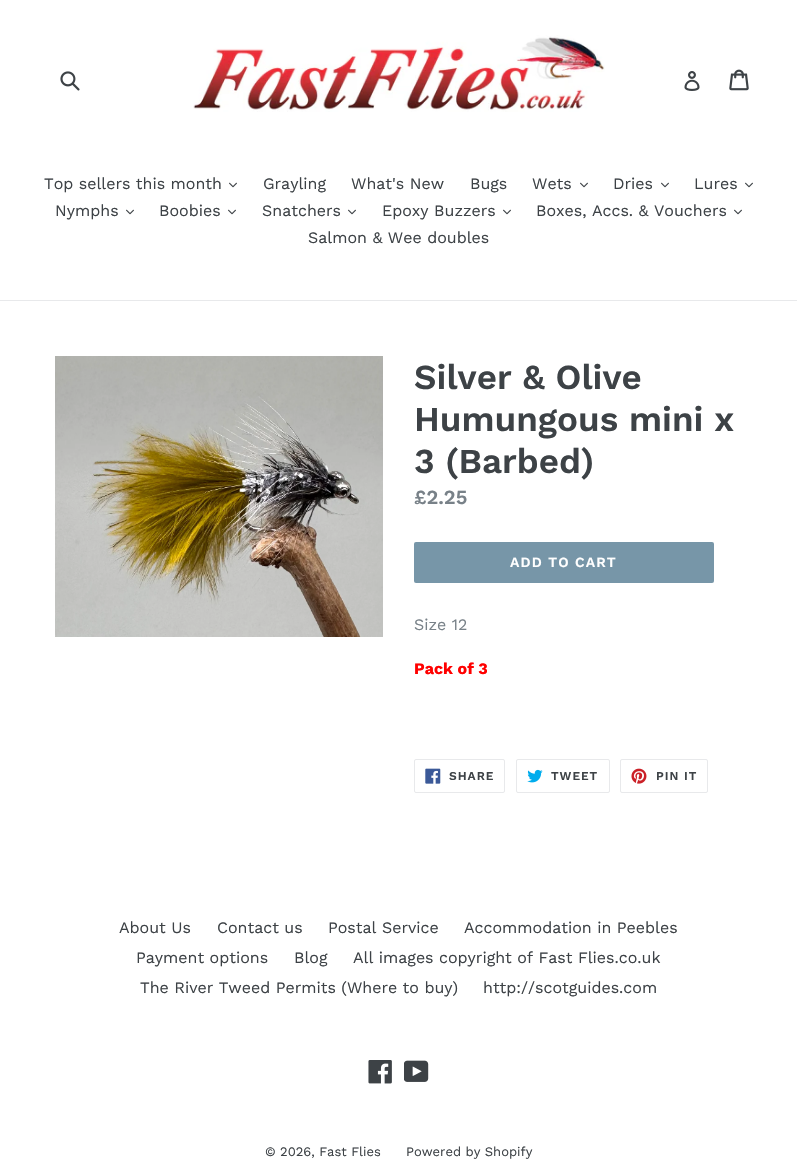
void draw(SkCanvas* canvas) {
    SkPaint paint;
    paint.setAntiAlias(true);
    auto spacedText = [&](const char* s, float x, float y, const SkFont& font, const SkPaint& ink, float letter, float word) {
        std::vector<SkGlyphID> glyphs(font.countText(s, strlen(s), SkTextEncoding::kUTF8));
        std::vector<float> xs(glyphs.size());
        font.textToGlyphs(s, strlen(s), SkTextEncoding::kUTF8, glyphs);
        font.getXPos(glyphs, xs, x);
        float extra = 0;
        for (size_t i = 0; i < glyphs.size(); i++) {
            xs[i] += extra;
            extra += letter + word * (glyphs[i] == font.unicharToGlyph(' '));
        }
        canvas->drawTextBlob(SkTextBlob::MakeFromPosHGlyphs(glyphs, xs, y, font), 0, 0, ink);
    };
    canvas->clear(0xFFFFFFFF);
    canvas->drawImageRect(SkImages::DeferredFromEncodedData(SkData::MakeFromFileName("img1.png")), SkRect::MakeXYWH(60, 71, 20, 20), SkSamplingOptions());
    canvas->drawImageRect(SkImages::DeferredFromEncodedData(SkData::MakeFromFileName("img2.png")), SkRect::MakeXYWH(193, 35, 412, 77), SkSamplingOptions());
    canvas->drawImageRect(SkImages::DeferredFromEncodedData(SkData::MakeFromFileName("img3.png")), SkRect::MakeXYWH(684, 71, 16, 20), SkSamplingOptions());
    canvas->drawImageRect(SkImages::DeferredFromEncodedData(SkData::MakeFromFileName("img4.png")), SkRect::MakeXYWH(729, 69, 20, 22), SkSamplingOptions());
    paint.setColor(0xFFE8E9EB);
    canvas->drawRect(SkRect::MakeXYWH(0, 300, 797, 1), paint);
    SkFont font1(fontMgr->matchFamilyStyle("Work Sans", SkFontStyle::Normal()), 16);
    font1.setSubpixel(true);
    paint.setColor(0xFF3D4246);
    canvas->drawString("Top sellers this month", 44, 189, font1, paint);
    canvas->drawImageRect(SkImages::DeferredFromEncodedData(SkData::MakeFromFileName("img5.png")), SkRect::MakeXYWH(229, 182, 8, 6), SkSamplingOptions());
    canvas->drawString("Grayling", 263, 189, font1, paint);
    canvas->drawString("What's New", 351, 189, font1, paint);
    canvas->drawString("Bugs", 470, 189, font1, paint);
    canvas->drawString("Wets", 532, 189, font1, paint);
    canvas->drawImageRect(SkImages::DeferredFromEncodedData(SkData::MakeFromFileName("img5.png")), SkRect::MakeXYWH(580, 182, 8, 6), SkSamplingOptions());
    canvas->drawString("Dries", 613, 189, font1, paint);
    canvas->drawImageRect(SkImages::DeferredFromEncodedData(SkData::MakeFromFileName("img5.png")), SkRect::MakeXYWH(661, 182, 8, 6), SkSamplingOptions());
    canvas->drawString("Lures", 694, 189, font1, paint);
    canvas->drawImageRect(SkImages::DeferredFromEncodedData(SkData::MakeFromFileName("img5.png")), SkRect::MakeXYWH(745, 182, 8, 6), SkSamplingOptions());
    canvas->drawString("Nymphs", 55, 216, font1, paint);
    canvas->drawImageRect(SkImages::DeferredFromEncodedData(SkData::MakeFromFileName("img5.png")), SkRect::MakeXYWH(126, 209, 8, 6), SkSamplingOptions());
    canvas->drawString("Boobies", 159, 216, font1, paint);
    canvas->drawImageRect(SkImages::DeferredFromEncodedData(SkData::MakeFromFileName("img5.png")), SkRect::MakeXYWH(228, 209, 8, 6), SkSamplingOptions());
    canvas->drawString("Snatchers", 262, 216, font1, paint);
    canvas->drawImageRect(SkImages::DeferredFromEncodedData(SkData::MakeFromFileName("img5.png")), SkRect::MakeXYWH(348, 209, 8, 6), SkSamplingOptions());
    canvas->drawString("Epoxy Buzzers", 382, 216, font1, paint);
    canvas->drawImageRect(SkImages::DeferredFromEncodedData(SkData::MakeFromFileName("img5.png")), SkRect::MakeXYWH(503, 209, 8, 6), SkSamplingOptions());
    canvas->drawString("Boxes, Accs. & Vouchers", 536, 216, font1, paint);
    canvas->drawImageRect(SkImages::DeferredFromEncodedData(SkData::MakeFromFileName("img5.png")), SkRect::MakeXYWH(734, 209, 8, 6), SkSamplingOptions());
    canvas->drawString("Salmon & Wee doubles", 308, 243, font1, paint);
    canvas->drawImageRect(SkImages::DeferredFromEncodedData(SkData::MakeFromFileName("img6.png")), SkRect::MakeXYWH(55, 356, 328, 281), SkSamplingOptions());
    SkFont font2(fontMgr->matchFamilyStyle("Work Sans", SkFontStyle(600, SkFontStyle::kNormal_Width, SkFontStyle::kUpright_Slant)), 35);
    font2.setSubpixel(true);
    canvas->drawString("Silver & Olive", 414, 389, font2, paint);
    canvas->drawString("Humungous mini x", 414, 431, font2, paint);
    canvas->drawString("3 (Barbed)", 414, 473, font2, paint);
    SkFont font3(fontMgr->matchFamilyStyle("Work Sans", SkFontStyle(600, SkFontStyle::kNormal_Width, SkFontStyle::kUpright_Slant)), 20);
    font3.setSubpixel(true);
    paint.setColor(0xFF788188);
    canvas->drawString("£2.25", 414, 504, font3, paint);
    paint.setColor(0xFF7796A8);
    canvas->drawRoundRect(SkRect::MakeXYWH(414, 542, 300, 41), 2, 2, paint);
    SkFont font4(fontMgr->matchFamilyStyle("Work Sans", SkFontStyle(600, SkFontStyle::kNormal_Width, SkFontStyle::kUpright_Slant)), 14);
    font4.setSubpixel(true);
    paint.setColor(0xFFFFFFFF);
    spacedText("ADD TO CART", 510, 567, font4, paint, 1.1f, 0);
    paint.setColor(0xFF788188);
    canvas->drawString("Size 12", 414, 630, font1, paint);
    SkFont font5(fontMgr->matchFamilyStyle("Work Sans", SkFontStyle::Bold()), 16);
    font5.setSubpixel(true);
    paint.setColor(0xFFFF0000);
    canvas->drawString("Pack of 3", 414, 674, font5, paint);
    paint.setStyle(SkPaint::kStroke_Style);
    paint.setStrokeWidth(1);
    paint.setColor(0xFFE8E9EB);
    canvas->drawRoundRect(SkRect::MakeXYWH(414.5f, 759.5f, 90, 33), 1.5f, 1.5f, paint);
    canvas->drawImageRect(SkImages::DeferredFromEncodedData(SkData::MakeFromFileName("img7.png")), SkRect::MakeXYWH(425, 768, 16, 16), SkSamplingOptions());
    SkFont font6(fontMgr->matchFamilyStyle("Work Sans", SkFontStyle(600, SkFontStyle::kNormal_Width, SkFontStyle::kUpright_Slant)), 12);
    font6.setSubpixel(true);
    paint.setStyle(SkPaint::kFill_Style);
    paint.setColor(0xFF3D4246);
    spacedText("SHARE", 449, 780, font6, paint, 1, 0);
    paint.setStyle(SkPaint::kStroke_Style);
    paint.setColor(0xFFE8E9EB);
    canvas->drawRoundRect(SkRect::MakeXYWH(516.5f, 759.5f, 93, 33), 1.5f, 1.5f, paint);
    canvas->drawImageRect(SkImages::DeferredFromEncodedData(SkData::MakeFromFileName("img8.png")), SkRect::MakeXYWH(527, 769, 16, 14), SkSamplingOptions());
    paint.setStyle(SkPaint::kFill_Style);
    paint.setColor(0xFF3D4246);
    spacedText("TWEET", 551, 780, font6, paint, 1, 0);
    paint.setStyle(SkPaint::kStroke_Style);
    paint.setColor(0xFFE8E9EB);
    canvas->drawRoundRect(SkRect::MakeXYWH(620.5f, 759.5f, 87, 33), 1.5f, 1.5f, paint);
    canvas->drawImageRect(SkImages::DeferredFromEncodedData(SkData::MakeFromFileName("img9.png")), SkRect::MakeXYWH(631, 768, 16, 16), SkSamplingOptions());
    paint.setStyle(SkPaint::kFill_Style);
    paint.setColor(0xFF3D4246);
    spacedText("PIN IT", 656, 780, font6, paint, 1, 0);
    canvas->drawString("About Us", 119, 933, font1, paint);
    canvas->drawString("Contact us", 217, 933, font1, paint);
    canvas->drawString("Postal Service", 328, 933, font1, paint);
    canvas->drawString("Accommodation in Peebles", 464, 933, font1, paint);
    canvas->drawString("Payment options", 136, 963, font1, paint);
    canvas->drawString("Blog", 294, 963, font1, paint);
    canvas->drawString("All images copyright of Fast Flies.co.uk", 353, 963, font1, paint);
    canvas->drawString("The River Tweed Permits (Where to buy)", 140, 993, font1, paint);
    canvas->drawString("http://scotguides.com", 483, 993, font1, paint);
    canvas->drawImageRect(SkImages::DeferredFromEncodedData(SkData::MakeFromFileName("img10.png")), SkRect::MakeXYWH(368, 1060, 24, 24), SkSamplingOptions());
    canvas->drawImageRect(SkImages::DeferredFromEncodedData(SkData::MakeFromFileName("img11.png")), SkRect::MakeXYWH(404, 1060, 25, 22), SkSamplingOptions());
    SkFont font7(fontMgr->matchFamilyStyle("Work Sans", SkFontStyle::Normal()), 13);
    font7.setSubpixel(true);
    canvas->drawString("© 2026, Fast Flies", 265, 1156, font7, paint);
    canvas->drawString("Powered by Shopify", 406, 1156, font7, paint);
}
